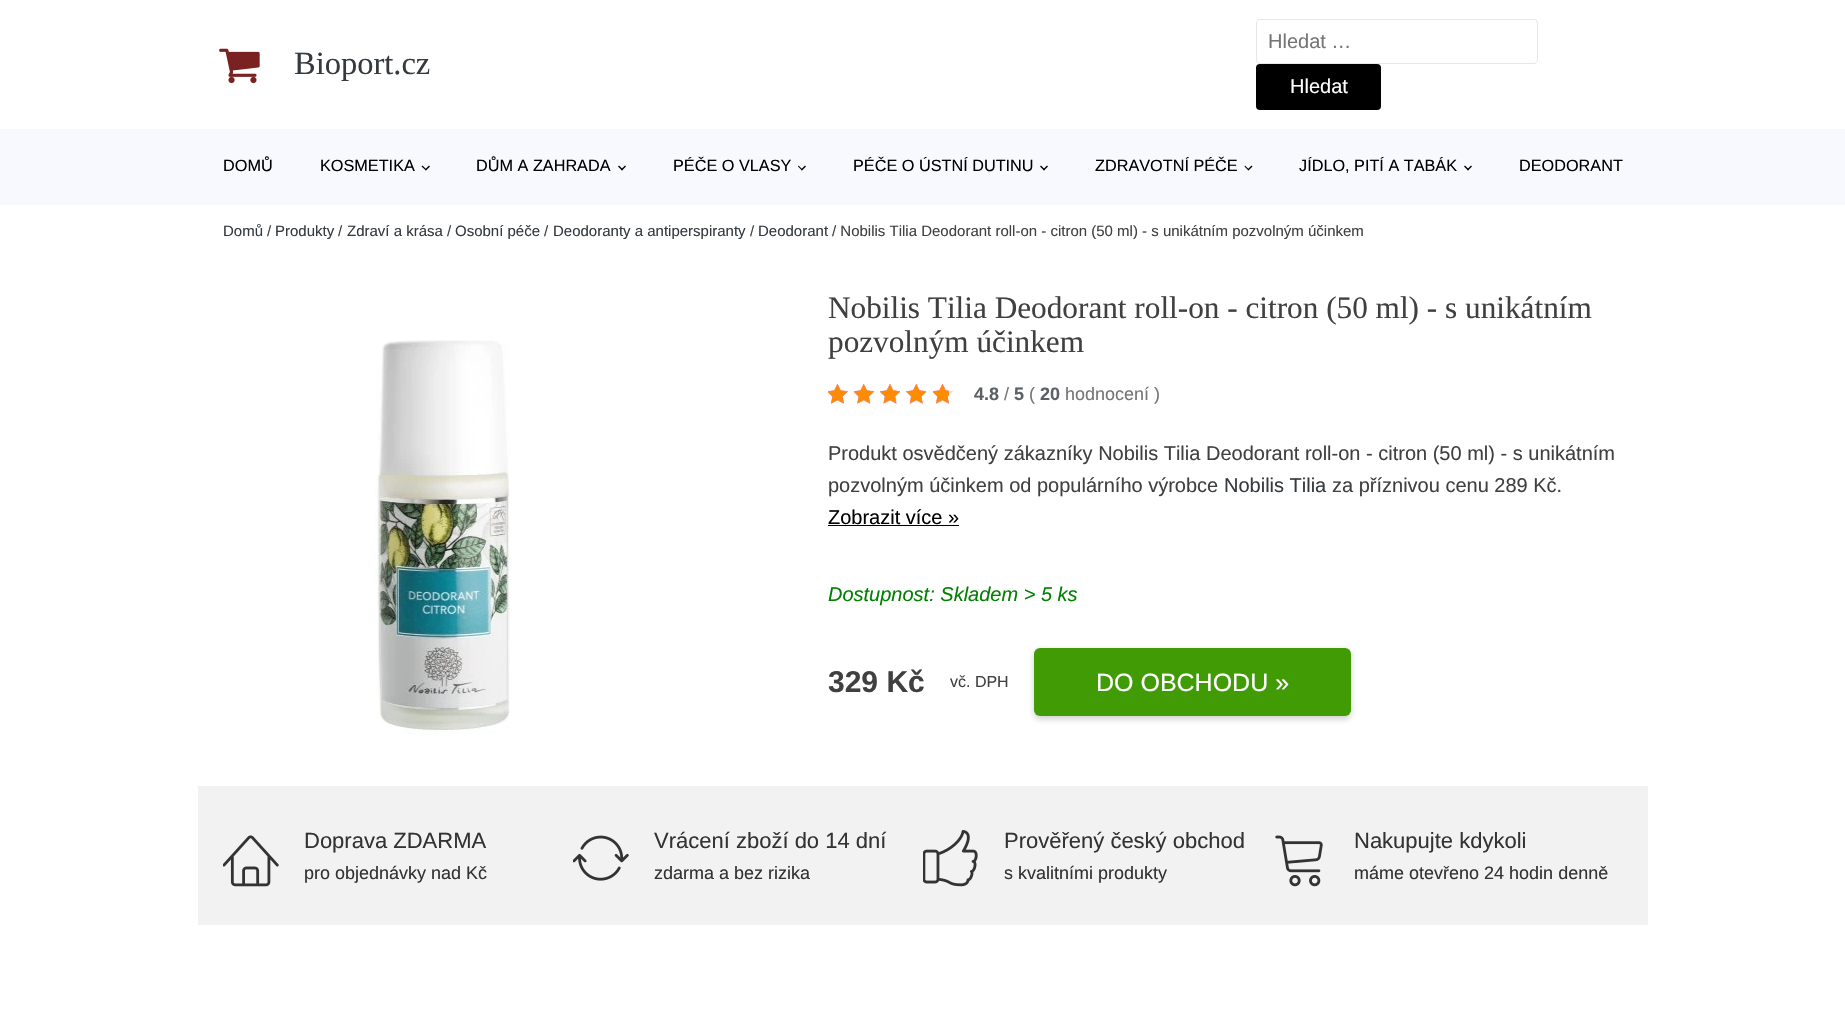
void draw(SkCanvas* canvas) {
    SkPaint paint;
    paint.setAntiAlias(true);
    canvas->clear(0xFFFFFFFF);
    canvas->drawImageRect(SkImages::DeferredFromEncodedData(SkData::MakeFromFileName("img1.png")), SkRect::MakeXYWH(219, 48, 41, 36), SkSamplingOptions());
    SkFont font1(fontMgr->matchFamilyStyle("Liberation Serif", SkFontStyle::Normal()), 32.5f);
    font1.setSubpixel(true);
    paint.setColor(0xFF343A3F);
    canvas->drawString("Bioport.cz", 294, 74, font1, paint);
    paint.setStyle(SkPaint::kStroke_Style);
    paint.setStrokeWidth(1);
    paint.setColor(0xFFE7E7E7);
    canvas->drawRoundRect(SkRect::MakeXYWH(1256.5f, 19.5f, 281, 44), 3.5f, 3.5f, paint);
    SkFont font2(fontMgr->matchFamilyStyle("Liberation Sans", SkFontStyle::Normal()), 20);
    font2.setSubpixel(true);
    paint.setStyle(SkPaint::kFill_Style);
    paint.setColor(0xFF757575);
    canvas->drawString("Hledat …", 1268, 48, font2, paint);
    paint.setColor(0xFF000000);
    canvas->drawRoundRect(SkRect::MakeXYWH(1256, 64, 125, 46), 4, 4, paint);
    paint.setColor(0xFFFFFFFF);
    canvas->drawString("Hledat", 1290, 93, font2, paint);
    paint.setColor(0xFFF8F9FF);
    canvas->drawRect(SkRect::MakeXYWH(0, 129, 1845, 76), paint);
    SkFont font3(fontMgr->matchFamilyStyle("Liberation Sans", SkFontStyle::Normal()), 16.25f);
    font3.setSubpixel(true);
    paint.setColor(0xFF000000);
    canvas->drawString("DOMŮ", 223, 171, font3, paint);
    canvas->drawString("KOSMETIKA", 320, 171, font3, paint);
    canvas->drawPath(SkPathBuilder().moveTo(430, 166.5f).lineTo(426, 170.5f).lineTo(425, 169.5f).lineTo(429, 165.5f).close().detach(), paint);
    canvas->drawPath(SkPathBuilder().moveTo(426.5f, 169.5f).lineTo(426, 170.5f).lineTo(421.5f, 166.5f).lineTo(422.5f, 165.5f).close().detach(), paint);
    canvas->drawString("DŮM A ZAHRADA", 476, 171, font3, paint);
    canvas->drawPath(SkPathBuilder().moveTo(626, 166.5f).lineTo(622, 170.5f).lineTo(621, 169.5f).lineTo(625, 165.5f).close().detach(), paint);
    canvas->drawPath(SkPathBuilder().moveTo(623, 169.5f).lineTo(622, 170.5f).lineTo(618, 166.5f).lineTo(619, 165.5f).close().detach(), paint);
    canvas->drawString("PÉČE O VLASY", 673, 171, font3, paint);
    canvas->drawPath(SkPathBuilder().moveTo(806, 166.5f).lineTo(802, 170.5f).lineTo(801, 169.5f).lineTo(805, 165.5f).close().detach(), paint);
    canvas->drawPath(SkPathBuilder().moveTo(802.5f, 169.5f).lineTo(802, 170.5f).lineTo(798, 166.5f).lineTo(798.5f, 165.5f).close().detach(), paint);
    canvas->drawString("PÉČE O ÚSTNÍ DUTINU", 853, 171, font3, paint);
    canvas->drawPath(SkPathBuilder().moveTo(1048, 166.5f).lineTo(1044, 170.5f).lineTo(1043, 169.5f).lineTo(1047, 165.5f).close().detach(), paint);
    canvas->drawPath(SkPathBuilder().moveTo(1045, 169.5f).lineTo(1044, 170.5f).lineTo(1040, 166.5f).lineTo(1041, 165.5f).close().detach(), paint);
    canvas->drawString("ZDRAVOTNÍ PÉČE", 1095, 171, font3, paint);
    canvas->drawPath(SkPathBuilder().moveTo(1252.5f, 166.5f).lineTo(1248.5f, 170.5f).lineTo(1247.5f, 169.5f).lineTo(1251.5f, 165.5f).close().detach(), paint);
    canvas->drawPath(SkPathBuilder().moveTo(1249, 169.5f).lineTo(1248.5f, 170.5f).lineTo(1244.5f, 166.5f).lineTo(1245, 165.5f).close().detach(), paint);
    canvas->drawString("JÍDLO, PITÍ A TABÁK", 1299, 171, font3, paint);
    canvas->drawPath(SkPathBuilder().moveTo(1472, 166.5f).lineTo(1468, 170.5f).lineTo(1467, 169.5f).lineTo(1471, 165.5f).close().detach(), paint);
    canvas->drawPath(SkPathBuilder().moveTo(1469, 169.5f).lineTo(1468, 170.5f).lineTo(1464, 166.5f).lineTo(1465, 165.5f).close().detach(), paint);
    canvas->drawString("DEODORANT", 1519, 171, font3, paint);
    SkFont font4(fontMgr->matchFamilyStyle("Liberation Sans", SkFontStyle::Normal()), 15);
    font4.setSubpixel(true);
    paint.setColor(0xFF343A3F);
    canvas->drawString("Domů", 223, 236, font4, paint);
    paint.setColor(0xFF404040);
    canvas->drawString("/", 267, 236, font4, paint);
    paint.setColor(0xFF343A3F);
    canvas->drawString("Produkty", 275, 236, font4, paint);
    paint.setColor(0xFF404040);
    canvas->drawString("/", 338, 236, font4, paint);
    paint.setColor(0xFF343A3F);
    canvas->drawString("Zdraví a krása", 347, 236, font4, paint);
    paint.setColor(0xFF404040);
    canvas->drawString("/", 447, 236, font4, paint);
    paint.setColor(0xFF343A3F);
    canvas->drawString("Osobní péče", 455, 236, font4, paint);
    paint.setColor(0xFF404040);
    canvas->drawString("/", 544, 236, font4, paint);
    paint.setColor(0xFF343A3F);
    canvas->drawString("Deodoranty a antiperspiranty", 553, 236, font4, paint);
    paint.setColor(0xFF404040);
    canvas->drawString("/", 750, 236, font4, paint);
    paint.setColor(0xFF343A3F);
    canvas->drawString("Deodorant", 758, 236, font4, paint);
    paint.setColor(0xFF404040);
    canvas->drawString("/ Nobilis Tilia Deodorant roll-on - citron (50 ml) - s unikátním pozvolným účinkem", 832, 236, font4, paint);
    canvas->drawImageRect(SkImages::DeferredFromEncodedData(SkData::MakeFromFileName("img2.png")), SkRect::MakeXYWH(375, 340, 135, 394), SkSamplingOptions());
    SkFont font5(fontMgr->matchFamilyStyle("Liberation Serif", SkFontStyle::Normal()), 31.25f);
    font5.setSubpixel(true);
    canvas->drawString("Nobilis Tilia Deodorant roll-on - citron (50 ml) - s unikátním", 828, 318, font5, paint);
    canvas->drawString("pozvolným účinkem", 828, 352, font5, paint);
    canvas->drawImageRect(SkImages::DeferredFromEncodedData(SkData::MakeFromFileName("img3.png")), SkRect::MakeXYWH(828, 384, 20, 20), SkSamplingOptions());
    canvas->drawImageRect(SkImages::DeferredFromEncodedData(SkData::MakeFromFileName("img4.png")), SkRect::MakeXYWH(854, 384, 20, 20), SkSamplingOptions());
    canvas->drawImageRect(SkImages::DeferredFromEncodedData(SkData::MakeFromFileName("img5.png")), SkRect::MakeXYWH(880, 384, 20, 20), SkSamplingOptions());
    canvas->drawImageRect(SkImages::DeferredFromEncodedData(SkData::MakeFromFileName("img6.png")), SkRect::MakeXYWH(906, 384, 20, 20), SkSamplingOptions());
    canvas->drawImageRect(SkImages::DeferredFromEncodedData(SkData::MakeFromFileName("img3.png")), SkRect::MakeXYWH(933, 384, 20, 20), SkSamplingOptions());
    canvas->drawImageRect(SkImages::DeferredFromEncodedData(SkData::MakeFromFileName("img7.png")), SkRect::MakeXYWH(828, 384, 20, 20), SkSamplingOptions());
    canvas->drawImageRect(SkImages::DeferredFromEncodedData(SkData::MakeFromFileName("img8.png")), SkRect::MakeXYWH(854, 384, 20, 20), SkSamplingOptions());
    canvas->drawImageRect(SkImages::DeferredFromEncodedData(SkData::MakeFromFileName("img9.png")), SkRect::MakeXYWH(880, 384, 20, 20), SkSamplingOptions());
    canvas->drawImageRect(SkImages::DeferredFromEncodedData(SkData::MakeFromFileName("img10.png")), SkRect::MakeXYWH(906, 384, 20, 20), SkSamplingOptions());
    canvas->drawImageRect(SkImages::DeferredFromEncodedData(SkData::MakeFromFileName("img11.png")), SkRect::MakeXYWH(933, 384, 16, 20), SkSamplingOptions());
    SkFont font6(fontMgr->matchFamilyStyle("Liberation Sans", SkFontStyle::Bold()), 18);
    font6.setSubpixel(true);
    paint.setColor(0xFF5D6165);
    canvas->drawString("4.8", 974, 400, font6, paint);
    SkFont font7(fontMgr->matchFamilyStyle("Liberation Sans", SkFontStyle::Normal()), 18);
    font7.setSubpixel(true);
    paint.setColor(0xFF757575);
    canvas->drawString("/", 1004, 400, font7, paint);
    paint.setColor(0xFF5D6165);
    canvas->drawString("5", 1014, 400, font6, paint);
    paint.setColor(0xFF757575);
    canvas->drawString("(", 1029, 400, font7, paint);
    paint.setColor(0xFF5D6165);
    canvas->drawString("20", 1040, 400, font6, paint);
    paint.setColor(0xFF757575);
    canvas->drawString("hodnocení )", 1065, 400, font7, paint);
    paint.setColor(0xFF404040);
    canvas->drawString("Produkt osvědčený zákazníky Nobilis Tilia Deodorant roll-on - citron (50 ml) - s unikátním", 828, 460, font2, paint);
    canvas->drawString("pozvolným účinkem od populárního výrobce", 828, 492, font2, paint);
    paint.setColor(0xFF343A3F);
    canvas->drawString("Nobilis Tilia", 1224, 492, font2, paint);
    paint.setColor(0xFF404040);
    canvas->drawString("za příznivou cenu 289 Kč.", 1332, 492, font2, paint);
    paint.setColor(0xFF000000);
    canvas->drawString("Zobrazit více »", 828, 524, font2, paint);
    canvas->drawRect(SkRect::MakeXYWH(828, 525, 131, 1), paint);
    SkFont font8(fontMgr->matchFamilyStyle("Liberation Sans", SkFontStyle::Italic()), 20);
    font8.setSubpixel(true);
    paint.setColor(0xFF008000);
    canvas->drawString("Dostupnost: Skladem > 5 ks", 828, 601, font8, paint);
    SkFont font9(fontMgr->matchFamilyStyle("Liberation Sans", SkFontStyle::Bold()), 30);
    font9.setSubpixel(true);
    paint.setColor(0xFF404040);
    canvas->drawString("329 Kč", 828, 692, font9, paint);
    SkFont font10(fontMgr->matchFamilyStyle("Liberation Sans", SkFontStyle::Normal()), 16);
    font10.setSubpixel(true);
    canvas->drawString("vč. DPH", 950, 687, font10, paint);
    paint.setColor(0x40343A3F);
    paint.setMaskFilter(SkMaskFilter::MakeBlur(kNormal_SkBlurStyle, 3));
    canvas->drawRoundRect(SkRect::MakeXYWH(1034, 650, 317, 69), 6, 6, paint);
    paint.setMaskFilter(nullptr);
    paint.setColor(0xFF419B04);
    canvas->drawRoundRect(SkRect::MakeXYWH(1034, 648, 317, 68), 6, 6, paint);
    SkFont font11(fontMgr->matchFamilyStyle("Liberation Sans", SkFontStyle::Normal()), 25);
    font11.setSubpixel(true);
    paint.setColor(0xFFFFFFFF);
    canvas->drawString("DO OBCHODU »", 1096, 691, font11, paint);
    paint.setColor(0xFFF2F2F2);
    canvas->drawRect(SkRect::MakeXYWH(198, 786, 1450, 139), paint);
    canvas->drawImageRect(SkImages::DeferredFromEncodedData(SkData::MakeFromFileName("img12.png")), SkRect::MakeXYWH(223, 835, 56, 52), SkSamplingOptions());
    SkFont font12(fontMgr->matchFamilyStyle("Liberation Sans", SkFontStyle::Normal()), 22);
    font12.setSubpixel(true);
    paint.setColor(0xFF333333);
    canvas->drawString("Doprava ZDARMA", 304, 848, font12, paint);
    canvas->drawString("pro objednávky nad Kč", 304, 879, font7, paint);
    canvas->drawImageRect(SkImages::DeferredFromEncodedData(SkData::MakeFromFileName("img13.png")), SkRect::MakeXYWH(573, 835, 56, 46), SkSamplingOptions());
    canvas->drawString("Vrácení zboží do 14 dní", 654, 848, font12, paint);
    canvas->drawString("zdarma a bez rizika", 654, 879, font7, paint);
    canvas->drawImageRect(SkImages::DeferredFromEncodedData(SkData::MakeFromFileName("img14.png")), SkRect::MakeXYWH(923, 830, 55, 57), SkSamplingOptions());
    canvas->drawString("Prověřený český obchod", 1004, 848, font12, paint);
    canvas->drawString("s kvalitními produkty", 1004, 879, font7, paint);
    canvas->drawImageRect(SkImages::DeferredFromEncodedData(SkData::MakeFromFileName("img15.png")), SkRect::MakeXYWH(1275, 835, 48, 52), SkSamplingOptions());
    canvas->drawString("Nakupujte kdykoli", 1354, 848, font12, paint);
    canvas->drawString("máme otevřeno 24 hodin denně", 1354, 879, font7, paint);
}
